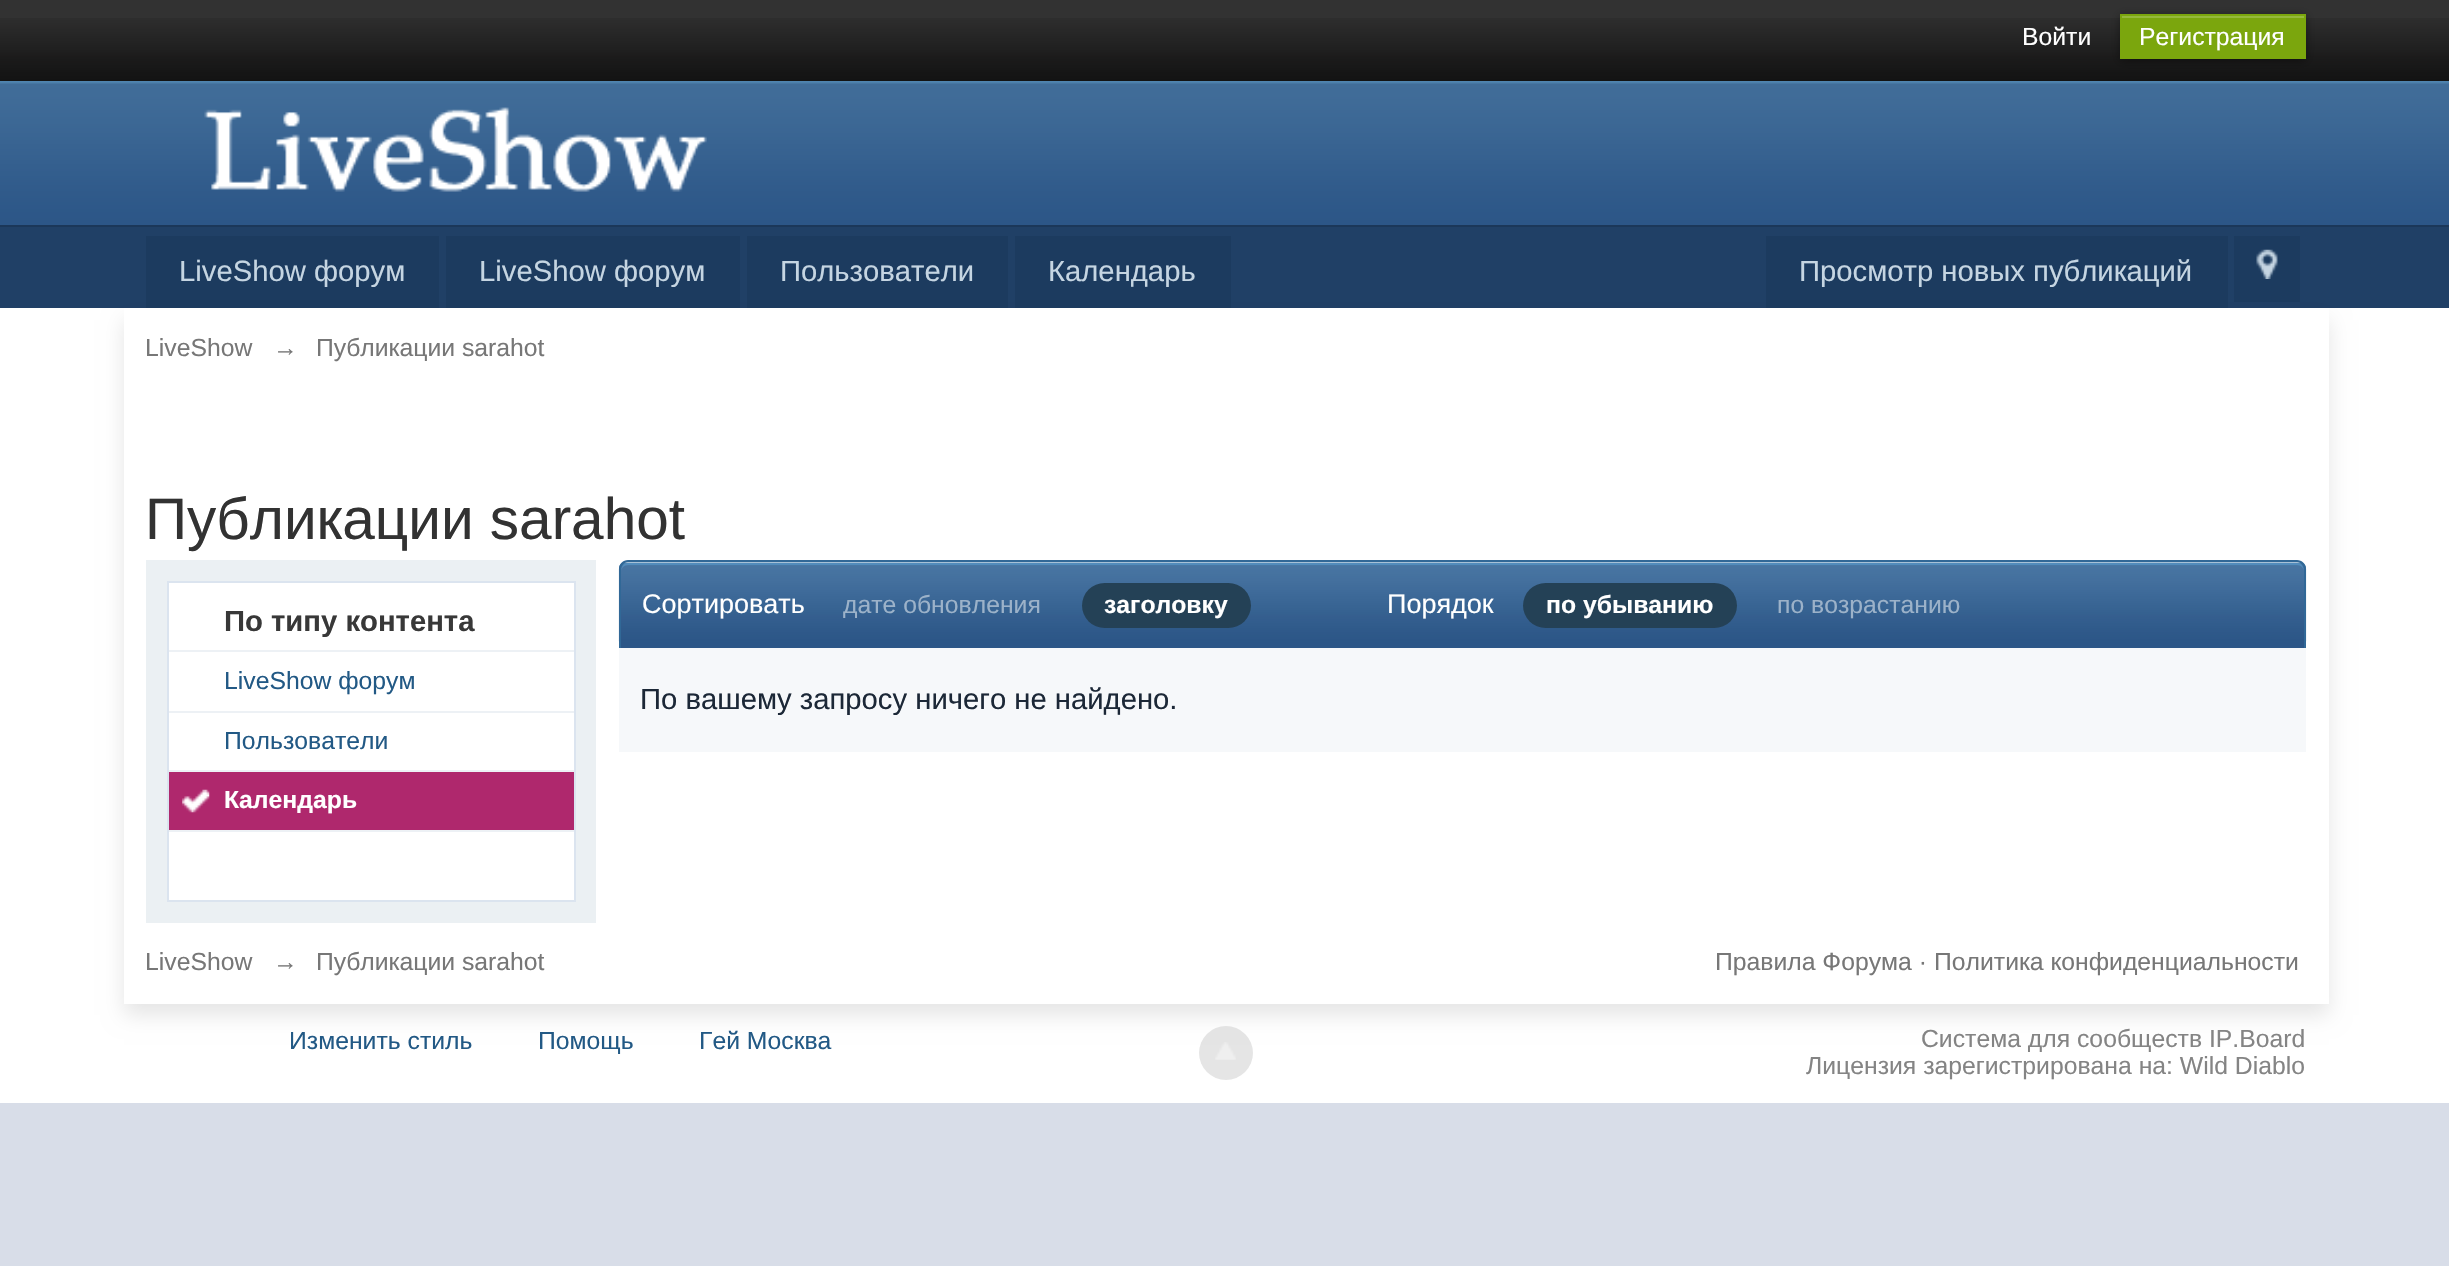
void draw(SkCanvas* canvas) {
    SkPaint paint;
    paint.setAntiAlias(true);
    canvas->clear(0xFFD8DDE8);
    paint.setColor(0xFFFFFFFF);
    canvas->drawRect(SkRect::MakeXYWH(0, 308, 2449, 795), paint);
    paint.setColor(0xFF323232);
    canvas->drawRect(SkRect::MakeXYWH(0, 0, 2449, 18), paint);
    canvas->drawImageRect(SkImages::DeferredFromEncodedData(SkData::MakeFromFileName("img1.png")), SkRect::MakeXYWH(0, 18, 2449, 63), SkSamplingOptions());
    SkFont font1(fontMgr->matchFamilyStyle("Liberation Sans", SkFontStyle::Normal()), 24.75f);
    font1.setSubpixel(true);
    paint.setColor(0xFFFFFFFF);
    canvas->drawString("Войти", 2022, 45, font1, paint);
    paint.setColor(0x66000000);
    paint.setMaskFilter(SkMaskFilter::MakeBlur(kNormal_SkBlurStyle, 4.5f));
    canvas->drawRect(SkRect::MakeXYWH(2120, 16, 186, 45), paint);
    paint.setMaskFilter(nullptr);
    paint.setColor(0xFF7BA60D);
    canvas->drawRect(SkRect::MakeXYWH(2120, 14, 186, 45), paint);
    paint.setColor(0xFF95B83D);
    canvas->drawRect(SkRect::MakeXYWH(2122, 16, 182, 2), paint);
    paint.setColor(0xFFFFFFFF);
    canvas->drawString("Регистрация", 2139, 45, font1, paint);
    canvas->drawImageRect(SkImages::DeferredFromEncodedData(SkData::MakeFromFileName("img2.png")), SkRect::MakeXYWH(0, 81, 2449, 144), SkSamplingOptions());
    paint.setColor(0xFF1B3759);
    canvas->drawRect(SkRect::MakeXYWH(0, 225, 2449, 2), paint);
    canvas->drawImageRect(SkImages::DeferredFromEncodedData(SkData::MakeFromFileName("img3.png")), SkRect::MakeXYWH(204, 107, 503, 85), SkSamplingOptions());
    paint.setColor(0xFF204066);
    canvas->drawRect(SkRect::MakeXYWH(0, 227, 2449, 81), paint);
    paint.setColor(0x1A000000);
    paint.setMaskFilter(SkMaskFilter::MakeBlur(kNormal_SkBlurStyle, 10));
    canvas->drawRect(SkRect::MakeXYWH(124, 320, 2205, 695), paint);
    paint.setMaskFilter(nullptr);
    paint.setColor(0xFF1C3B5F);
    canvas->drawRect(SkRect::MakeXYWH(146, 236, 293, 72), paint);
    SkFont font2(fontMgr->matchFamilyStyle("Liberation Sans", SkFontStyle::Normal()), 29.25f);
    font2.setSubpixel(true);
    paint.setColor(0xFFC5D5E2);
    canvas->drawString("LiveShow форум", 179, 281, font2, paint);
    paint.setColor(0xFF1C3B5F);
    canvas->drawRect(SkRect::MakeXYWH(446, 236, 294, 72), paint);
    paint.setColor(0xFFC5D5E2);
    canvas->drawString("LiveShow форум", 479, 281, font2, paint);
    paint.setColor(0xFF1C3B5F);
    canvas->drawRect(SkRect::MakeXYWH(747, 236, 261, 72), paint);
    paint.setColor(0xFFC5D5E2);
    canvas->drawString("Пользователи", 780, 281, font2, paint);
    paint.setColor(0xFF1C3B5F);
    canvas->drawRect(SkRect::MakeXYWH(1015, 236, 216, 72), paint);
    paint.setColor(0xFFC5D5E2);
    canvas->drawString("Календарь", 1048, 281, font2, paint);
    paint.setColor(0xFF1C3B5F);
    canvas->drawRect(SkRect::MakeXYWH(1766, 236, 462, 72), paint);
    paint.setColor(0xFFC5D5E2);
    canvas->drawString("Просмотр новых публикаций", 1799, 281, font2, paint);
    paint.setColor(0xFF1C3B5F);
    canvas->drawRect(SkRect::MakeXYWH(2234, 236, 66, 66), paint);
    canvas->drawImageRect(SkImages::DeferredFromEncodedData(SkData::MakeFromFileName("img4.png")), SkRect::MakeXYWH(2256, 249, 22, 30), SkSamplingOptions());
    paint.setColor(0xFFFFFFFF);
    canvas->drawRect(SkRect::MakeXYWH(124, 308, 2205, 696), paint);
    paint.setColor(0xFF777777);
    canvas->drawString("LiveShow", 145, 356, font1, paint);
    canvas->drawString("→", 273, 356, font1, paint);
    canvas->drawString("Публикации sarahot", 316, 356, font1, paint);
    SkFont font3(fontMgr->matchFamilyStyle("Liberation Sans", SkFontStyle::Normal()), 58.5f);
    font3.setSubpixel(true);
    paint.setColor(0xFF323232);
    canvas->drawString("Публикации sarahot", 145, 539, font3, paint);
    paint.setColor(0xFFEBF0F3);
    canvas->drawRect(SkRect::MakeXYWH(146, 560, 450, 363), paint);
    paint.setColor(0xFFFFFFFF);
    canvas->drawRect(SkRect::MakeXYWH(168, 582, 407, 319), paint);
    paint.setStyle(SkPaint::kStroke_Style);
    paint.setStrokeWidth(2);
    paint.setColor(0xFFDBE4EF);
    canvas->drawRect(SkRect::MakeXYWH(168, 582, 407, 319), paint);
    SkFont font4(fontMgr->matchFamilyStyle("Liberation Sans", SkFontStyle::Bold()), 29.25f);
    font4.setSubpixel(true);
    paint.setStyle(SkPaint::kFill_Style);
    paint.setColor(0xFF383838);
    canvas->drawString("По типу контента", 224, 631, font4, paint);
    paint.setColor(0xFFEDF1F5);
    canvas->drawRect(SkRect::MakeXYWH(169, 650, 405, 2), paint);
    canvas->drawRect(SkRect::MakeXYWH(169, 711, 405, 2), paint);
    paint.setColor(0xFF225985);
    canvas->drawString("LiveShow форум", 224, 689, font1, paint);
    paint.setColor(0xFFEDF1F5);
    canvas->drawRect(SkRect::MakeXYWH(169, 770, 405, 2), paint);
    paint.setColor(0xFF225985);
    canvas->drawString("Пользователи", 224, 749, font1, paint);
    paint.setColor(0xFFEDF1F5);
    canvas->drawRect(SkRect::MakeXYWH(169, 830, 405, 2), paint);
    paint.setColor(0xFFAF286D);
    canvas->drawRect(SkRect::MakeXYWH(169, 772, 405, 58), paint);
    canvas->drawImageRect(SkImages::DeferredFromEncodedData(SkData::MakeFromFileName("img5.png")), SkRect::MakeXYWH(182, 789, 28, 24), SkSamplingOptions());
    SkFont font5(fontMgr->matchFamilyStyle("Liberation Sans", SkFontStyle::Bold()), 24.75f);
    font5.setSubpixel(true);
    paint.setColor(0xFFFFFFFF);
    canvas->drawString("Календарь", 224, 808, font5, paint);
    paint.setColor(0xFF2C5687);
    canvas->drawPath(SkPathBuilder().moveTo(628, 563).lineTo(2297, 563).cubicTo(2301, 563, 2304, 566, 2304, 570).lineTo(2304, 648).lineTo(621, 648).lineTo(621, 570).cubicTo(621, 566, 624, 563, 628, 563).close().detach(), paint);
    canvas->drawImageRect(SkImages::DeferredFromEncodedData(SkData::MakeFromFileName("img6.png")), SkRect::MakeXYWH(618, 562, 1689, 80), SkSamplingOptions());
    paint.setColor(0xFF528CBC);
    canvas->drawPath(SkPathBuilder().moveTo(628, 565).lineTo(2297, 565).cubicTo(2301, 565, 2304, 568, 2304, 572).cubicTo(2304, 568, 2302, 563, 2297, 563).lineTo(628, 563).cubicTo(623, 563, 621, 568, 621, 572).cubicTo(621, 568, 624, 565, 628, 565).close().detach(), paint);
    paint.setColor(0xFF316897);
    canvas->drawPath(SkPathBuilder(SkPathFillType::kEvenOdd).moveTo(628, 560).lineTo(2297, 560).cubicTo(2302, 560, 2306, 564, 2306, 569).lineTo(2306, 648).lineTo(619, 648).lineTo(619, 569).cubicTo(619, 564, 623, 560, 628, 560).close().moveTo(628, 562).lineTo(2297, 562).cubicTo(2301, 562, 2304, 566, 2304, 569).lineTo(2304, 648).lineTo(621, 648).lineTo(621, 569).cubicTo(621, 566, 624, 562, 628, 562).close().detach(), paint);
    SkFont font6(fontMgr->matchFamilyStyle("Liberation Sans", SkFontStyle::Normal()), 27);
    font6.setSubpixel(true);
    paint.setColor(0xFFFFFFFF);
    canvas->drawString("Сортировать", 642, 613, font6, paint);
    paint.setColor(0xFF9CB2C9);
    canvas->drawString("дате обновления", 843, 613, font1, paint);
    paint.setColor(0xFF244156);
    canvas->drawRoundRect(SkRect::MakeXYWH(1082, 583, 169, 45), 22.5f, 22.5f, paint);
    paint.setColor(0xFFFFFFFF);
    canvas->drawString("заголовку", 1104, 613, font5, paint);
    canvas->drawString("Порядок", 1387, 613, font6, paint);
    paint.setColor(0xFF244156);
    canvas->drawRoundRect(SkRect::MakeXYWH(1523, 583, 214, 45), 22.5f, 22.5f, paint);
    paint.setColor(0xFFFFFFFF);
    canvas->drawString("по убыванию", 1546, 613, font5, paint);
    paint.setColor(0xFF9CB2C9);
    canvas->drawString("по возрастанию", 1777, 613, font1, paint);
    paint.setColor(0xFFF6F8FA);
    canvas->drawRect(SkRect::MakeXYWH(619, 648, 1687, 104), paint);
    paint.setColor(0xFF1C2837);
    canvas->drawString("По вашему запросу ничего не найдено.", 640, 709, font2, paint);
    paint.setColor(0xFF777777);
    canvas->drawString("LiveShow", 145, 970, font1, paint);
    canvas->drawString("→", 273, 970, font1, paint);
    canvas->drawString("Публикации sarahot", 316, 970, font1, paint);
    canvas->drawString("Правила Форума ·", 1715, 970, font1, paint);
    canvas->drawString("Политика конфиденциальности", 1934, 970, font1, paint);
    paint.setColor(0xFF225985);
    canvas->drawString("Изменить стиль", 289, 1049, font1, paint);
    canvas->drawString("Помощь", 538, 1049, font1, paint);
    canvas->drawString("Гей Москва", 699, 1049, font1, paint);
    paint.setColor(0x66BDBDBD);
    canvas->drawCircle(1226, 1053, 27, paint);
    canvas->drawImageRect(SkImages::DeferredFromEncodedData(SkData::MakeFromFileName("img7.png")), SkRect::MakeXYWH(1215, 1042, 21, 18), SkSamplingOptions());
    paint.setColor(0xFF848484);
    canvas->drawString("Система для сообществ IP.Board", 1921, 1047, font1, paint);
    canvas->drawString("Лицензия зарегистрирована на: Wild Diablo", 1806, 1074, font1, paint);
}
